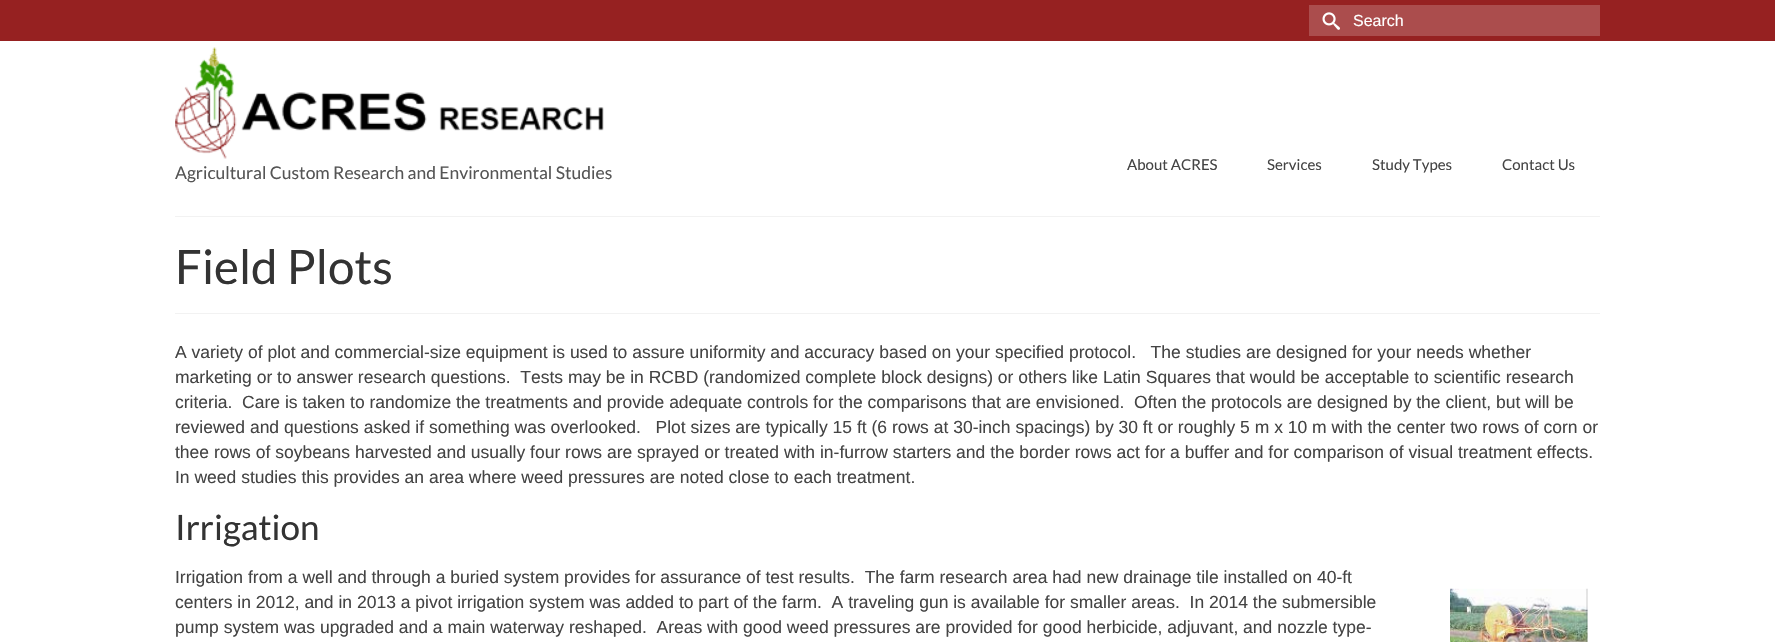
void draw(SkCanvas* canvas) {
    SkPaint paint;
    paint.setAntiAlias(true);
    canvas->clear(0xFFFFFFFF);
    paint.setColor(0xFF962121);
    canvas->drawRect(SkRect::MakeXYWH(0, 0, 1775, 41), paint);
    paint.setColor(0xFFAB4D4D);
    canvas->drawRect(SkRect::MakeXYWH(1309, 5, 291, 31), paint);
    canvas->drawImageRect(SkImages::DeferredFromEncodedData(SkData::MakeFromFileName("img1.png")), SkRect::MakeXYWH(1322, 12, 18, 18), SkSamplingOptions());
    SkFont font1(fontMgr->matchFamilyStyle("Liberation Sans", SkFontStyle::Normal()), 16);
    font1.setSubpixel(true);
    paint.setColor(0xFFFFFFFF);
    canvas->drawString("Search", 1353, 26, font1, paint);
    canvas->drawImageRect(SkImages::DeferredFromEncodedData(SkData::MakeFromFileName("img2.png")), SkRect::MakeXYWH(175, 47, 429, 112), SkSamplingOptions());
    SkFont font2(fontMgr->matchFamilyStyle("Lato", SkFontStyle::Normal()), 17.5f);
    font2.setSubpixel(true);
    paint.setColor(0xFF555555);
    canvas->drawString("Agricultural Custom Research and Environmental Studies", 175, 179, font2, paint);
    SkFont font3(fontMgr->matchFamilyStyle("Lato", SkFontStyle::Normal()), 15);
    font3.setSubpixel(true);
    paint.setColor(0xFF444444);
    canvas->drawString("About ACRES", 1127, 170, font3, paint);
    canvas->drawString("Services", 1267, 170, font3, paint);
    canvas->drawString("Study Types", 1372, 170, font3, paint);
    canvas->drawString("Contact Us", 1502, 170, font3, paint);
    paint.setColor(0xFFF2F2F2);
    canvas->drawRect(SkRect::MakeXYWH(175, 216, 1425, 1), paint);
    canvas->drawRect(SkRect::MakeXYWH(175, 313, 1425, 1), paint);
    SkFont font4(fontMgr->matchFamilyStyle("Lato", SkFontStyle::Normal()), 47.5f);
    font4.setSubpixel(true);
    paint.setColor(0xFF333333);
    canvas->drawString("Field Plots", 175, 284, font4, paint);
    SkFont font5(fontMgr->matchFamilyStyle("Liberation Sans", SkFontStyle::Normal()), 17.5f);
    font5.setSubpixel(true);
    paint.setColor(0xFF444444);
    canvas->drawString("A variety of plot and commercial-size equipment is used to assure uniformity and accuracy based on your specified protocol.   The studies are designed for your needs whether", 175, 358, font5, paint);
    canvas->drawString("marketing or to answer research questions.  Tests may be in RCBD (randomized complete block designs) or others like Latin Squares that would be acceptable to scientific research", 175, 383, font5, paint);
    canvas->drawString("criteria.  Care is taken to randomize the treatments and provide adequate controls for the comparisons that are envisioned.  Often the protocols are designed by the client, but will be", 175, 408, font5, paint);
    canvas->drawString("reviewed and questions asked if something was overlooked.   Plot sizes are typically 15 ft (6 rows at 30-inch spacings) by 30 ft or roughly 5 m x 10 m with the center two rows of corn or", 175, 433, font5, paint);
    canvas->drawString("thee rows of soybeans harvested and usually four rows are sprayed or treated with in-furrow starters and the border rows act for a buffer and for comparison of visual treatment effects.", 175, 458, font5, paint);
    canvas->drawString("In weed studies this provides an area where weed pressures are noted close to each treatment.", 175, 483, font5, paint);
    SkFont font6(fontMgr->matchFamilyStyle("Lato", SkFontStyle::Normal()), 35);
    font6.setSubpixel(true);
    paint.setColor(0xFF333333);
    canvas->drawString("Irrigation", 175, 540, font6, paint);
    paint.setColor(0xFF444444);
    canvas->drawString("Irrigation from a well and through a buried system provides for assurance of test results.  The farm research area had new drainage tile installed on 40-ft", 175, 583, font5, paint);
    canvas->drawString("centers in 2012, and in 2013 a pivot irrigation system was added to part of the farm.  A traveling gun is available for smaller areas.  In 2014 the submersible", 175, 608, font5, paint);
    canvas->drawImageRect(SkImages::DeferredFromEncodedData(SkData::MakeFromFileName("img3.png")), SkRect::MakeXYWH(1450, 588, 138, 54), SkSamplingOptions());
    canvas->drawString("pump system was upgraded and a main waterway reshaped.  Areas with good weed pressures are provided for good herbicide, adjuvant, and nozzle type-", 175, 633, font5, paint);
}
